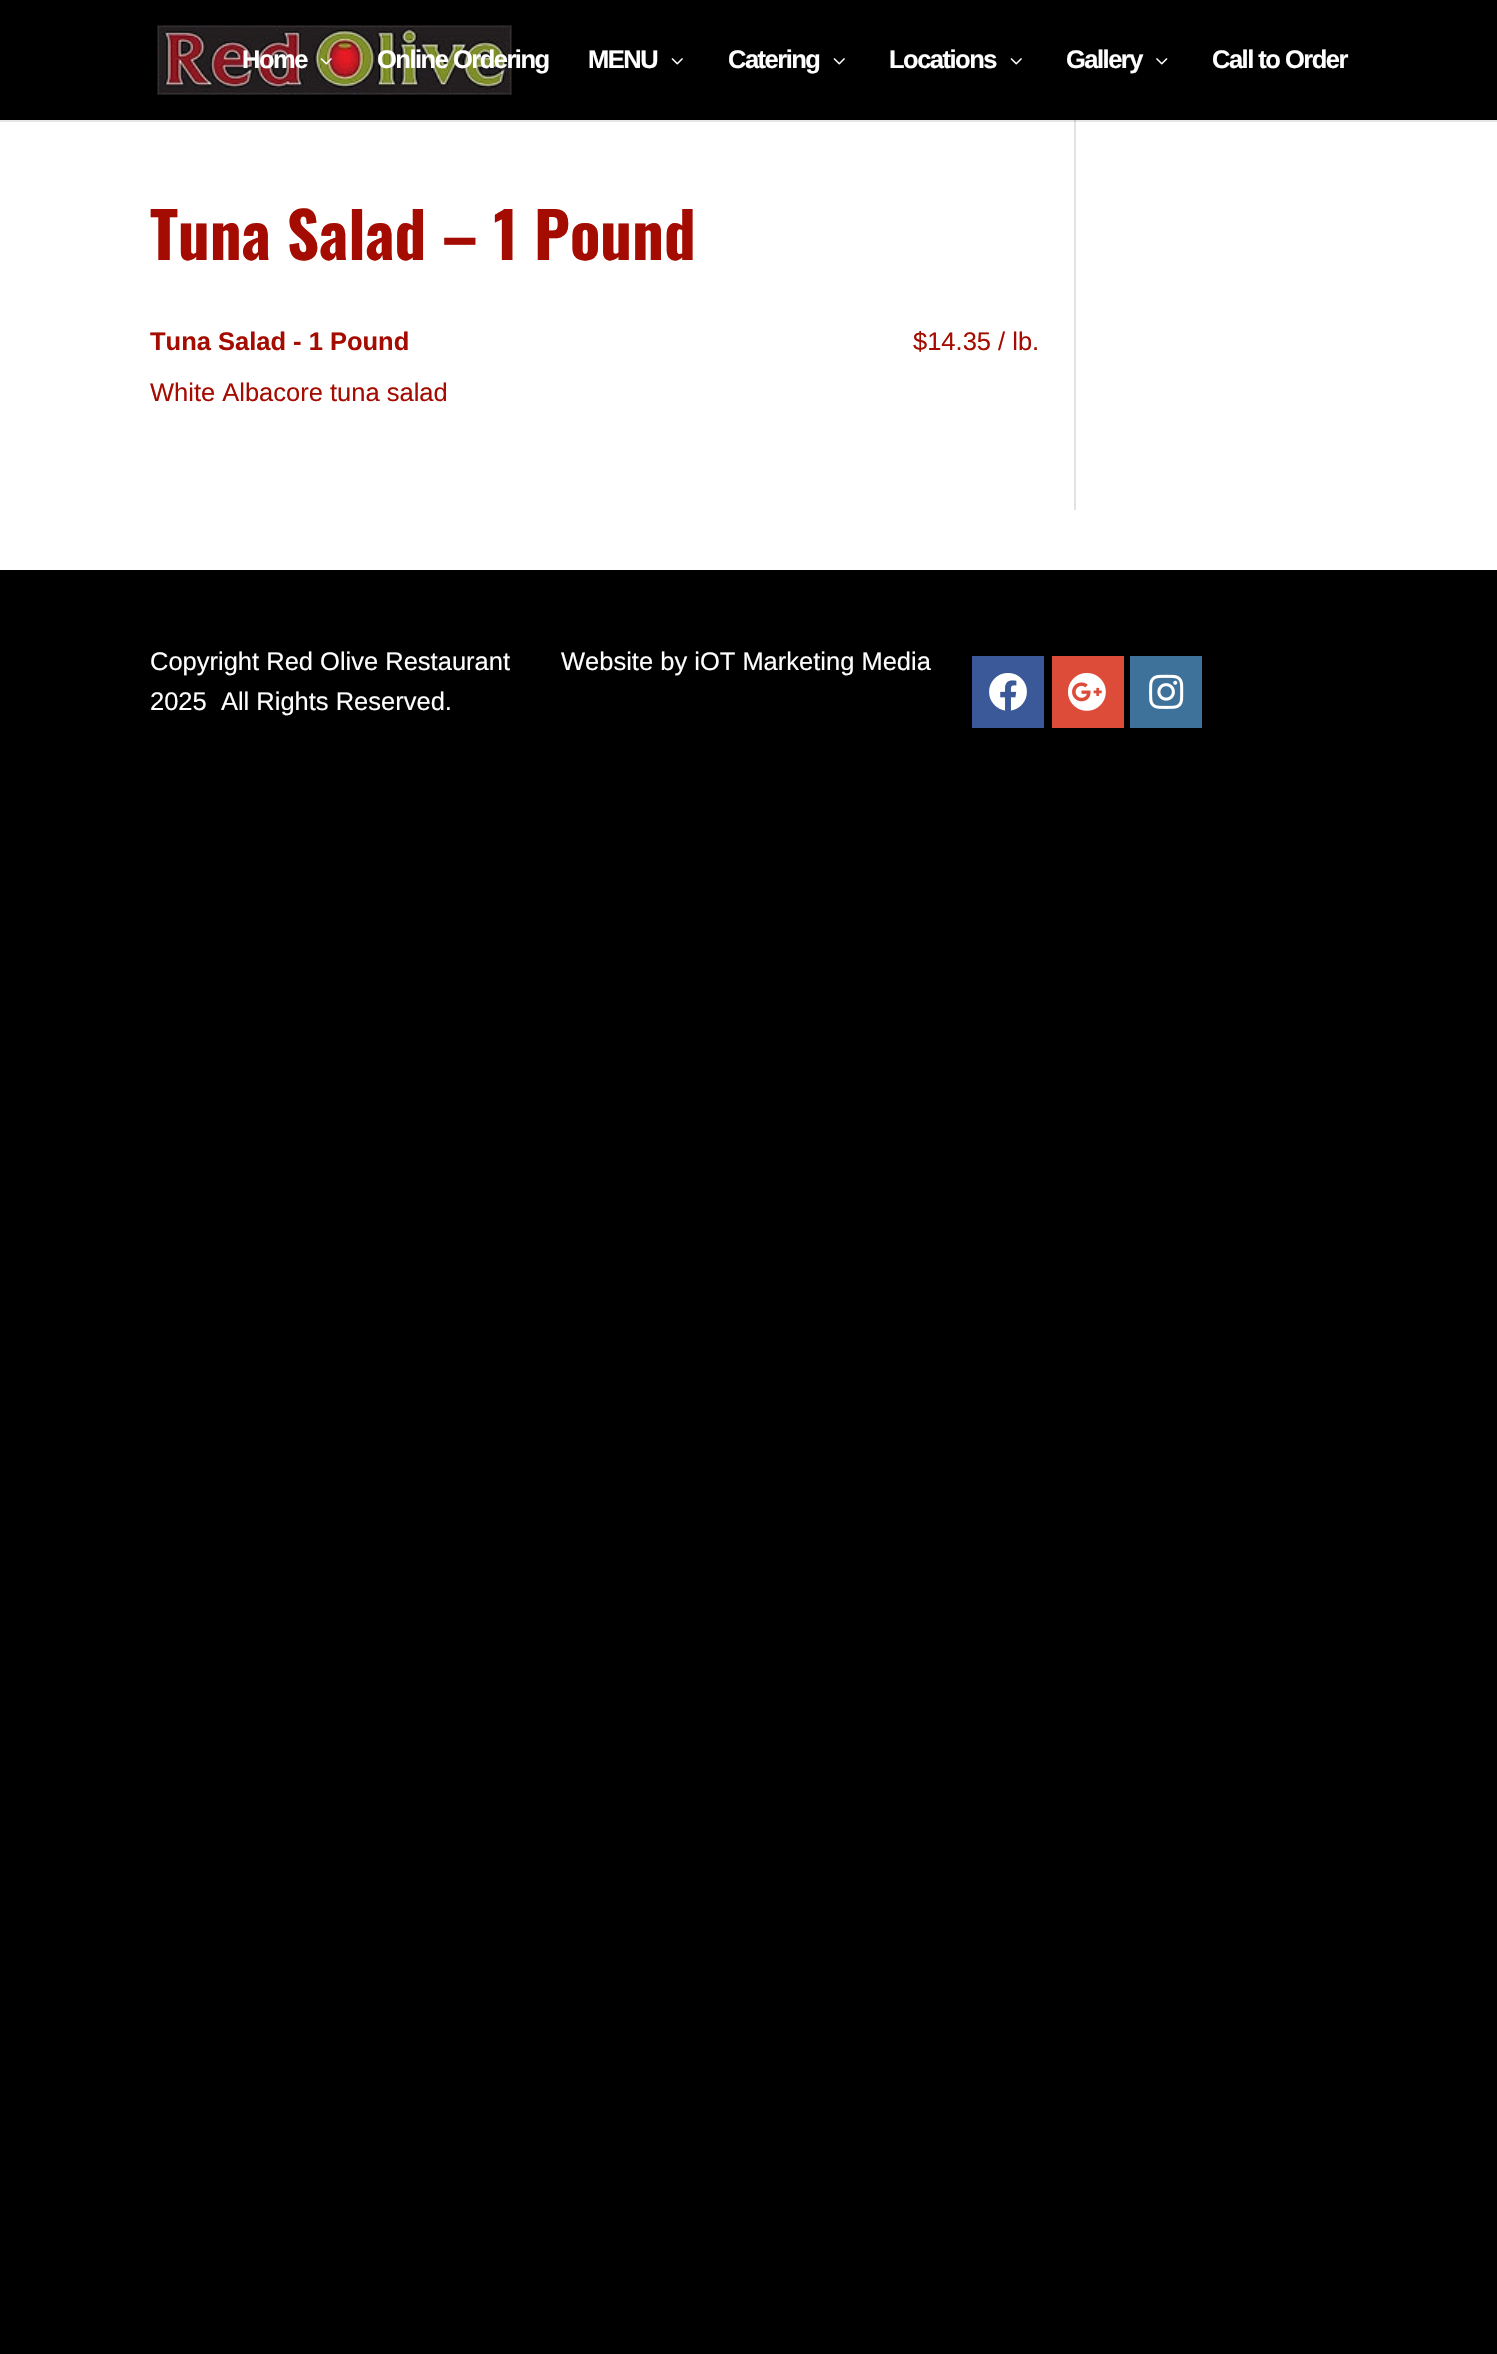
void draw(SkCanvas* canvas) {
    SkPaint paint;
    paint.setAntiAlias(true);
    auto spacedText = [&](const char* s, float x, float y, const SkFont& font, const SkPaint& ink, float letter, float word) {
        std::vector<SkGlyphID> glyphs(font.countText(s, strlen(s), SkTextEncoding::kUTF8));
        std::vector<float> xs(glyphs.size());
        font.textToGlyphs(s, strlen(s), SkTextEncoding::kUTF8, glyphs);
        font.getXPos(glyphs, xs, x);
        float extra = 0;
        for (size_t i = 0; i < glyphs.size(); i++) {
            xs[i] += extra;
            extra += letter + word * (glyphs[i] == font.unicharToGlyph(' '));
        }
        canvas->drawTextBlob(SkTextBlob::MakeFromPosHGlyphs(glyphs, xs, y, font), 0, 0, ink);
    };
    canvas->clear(0xFF000000);
    canvas->drawImageRect(SkImages::DeferredFromEncodedData(SkData::MakeFromFileName("img1.png")), SkRect::MakeXYWH(157, 25, 355, 70), SkSamplingOptions());
    SkFont font1(fontMgr->matchFamilyStyle("Arimo", SkFontStyle::Bold()), 25.5f);
    font1.setSubpixel(true);
    paint.setColor(0xFFFFFFFF);
    spacedText("Home", 242, 68, font1, paint, -1.5f, 0);
    canvas->drawImageRect(SkImages::DeferredFromEncodedData(SkData::MakeFromFileName("img2.png")), SkRect::MakeXYWH(320, 58, 12, 7), SkSamplingOptions());
    spacedText("Online Ordering", 377, 68, font1, paint, -1.5f, 0);
    spacedText("MENU", 588, 68, font1, paint, -1.5f, 0);
    canvas->drawImageRect(SkImages::DeferredFromEncodedData(SkData::MakeFromFileName("img3.png")), SkRect::MakeXYWH(671, 58, 12, 7), SkSamplingOptions());
    spacedText("Catering", 728, 68, font1, paint, -1.5f, 0);
    canvas->drawImageRect(SkImages::DeferredFromEncodedData(SkData::MakeFromFileName("img3.png")), SkRect::MakeXYWH(833, 58, 12, 7), SkSamplingOptions());
    spacedText("Locations", 889, 68, font1, paint, -1.5f, 0);
    canvas->drawImageRect(SkImages::DeferredFromEncodedData(SkData::MakeFromFileName("img3.png")), SkRect::MakeXYWH(1010, 58, 12, 7), SkSamplingOptions());
    spacedText("Gallery", 1066, 68, font1, paint, -1.5f, 0);
    canvas->drawImageRect(SkImages::DeferredFromEncodedData(SkData::MakeFromFileName("img4.png")), SkRect::MakeXYWH(1156, 58, 12, 7), SkSamplingOptions());
    spacedText("Call to Order", 1212, 68, font1, paint, -1.5f, 0);
    canvas->drawRect(SkRect::MakeXYWH(0, 122, 1497, 448), paint);
    paint.setColor(0xFFE6E6E6);
    canvas->drawRect(SkRect::MakeXYWH(0, 120, 1497, 2), paint);
    SkFont font2(fontMgr->matchFamilyStyle("Oswald", SkFontStyle::Bold()), 63);
    font2.setSubpixel(true);
    paint.setColor(0xFFA50C01);
    canvas->drawString("Tuna Salad – 1 Pound", 150, 260, font2, paint);
    canvas->drawString("Tuna Salad - 1 Pound", 150, 350, font1, paint);
    SkFont font3(fontMgr->matchFamilyStyle("Arimo", SkFontStyle::Normal()), 25.5f);
    font3.setSubpixel(true);
    canvas->drawString("$14.35 / lb.", 913, 350, font3, paint);
    canvas->drawString("White Albacore tuna salad", 150, 401, font3, paint);
    paint.setColor(0xFFE2E2E2);
    canvas->drawRect(SkRect::MakeXYWH(1074, 122, 2, 388), paint);
    paint.setColor(0xFFCBCBCB);
    canvas->drawRect(SkRect::MakeXYWH(1074, 120, 2, 2), paint);
    paint.setColor(0xFFFFFFFF);
    canvas->drawString("Copyright Red Olive Restaurant", 150, 670, font3, paint);
    canvas->drawString("2025  All Rights Reserved.", 150, 710, font3, paint);
    canvas->drawString("Website by iOT Marketing Media", 561, 670, font3, paint);
    paint.setColor(0xFF3B5998);
    canvas->drawRect(SkRect::MakeXYWH(972, 656, 72, 72), paint);
    canvas->drawImageRect(SkImages::DeferredFromEncodedData(SkData::MakeFromFileName("img5.png")), SkRect::MakeXYWH(989, 673, 38, 38), SkSamplingOptions());
    paint.setColor(0xFFDD4B39);
    canvas->drawRect(SkRect::MakeXYWH(1052, 656, 72, 72), paint);
    canvas->drawImageRect(SkImages::DeferredFromEncodedData(SkData::MakeFromFileName("img6.png")), SkRect::MakeXYWH(1068, 673, 38, 38), SkSamplingOptions());
    paint.setColor(0xFF3F729B);
    canvas->drawRect(SkRect::MakeXYWH(1130, 656, 72, 72), paint);
    canvas->drawImageRect(SkImages::DeferredFromEncodedData(SkData::MakeFromFileName("img7.png")), SkRect::MakeXYWH(1149, 674, 35, 35), SkSamplingOptions());
}
